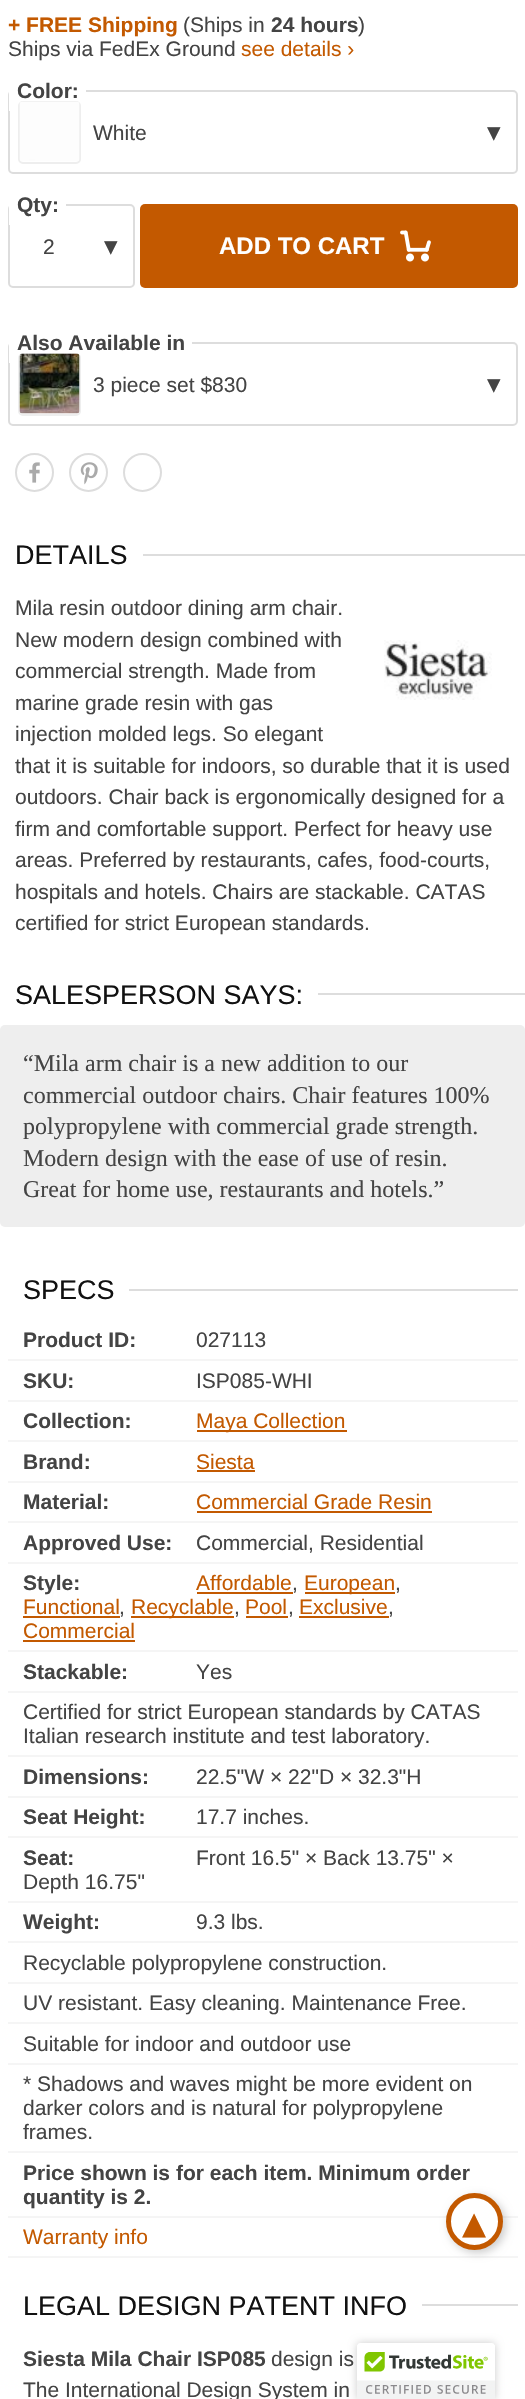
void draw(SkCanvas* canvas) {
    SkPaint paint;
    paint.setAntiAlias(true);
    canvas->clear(0xFFFFFFFF);
    SkFont font1(fontMgr->matchFamilyStyle("Liberation Sans", SkFontStyle::Bold()), 21);
    font1.setSubpixel(true);
    paint.setColor(0xFFC35900);
    canvas->drawString("+ FREE Shipping", 8, 32, font1, paint);
    SkFont font2(fontMgr->matchFamilyStyle("Liberation Sans", SkFontStyle::Normal()), 21);
    font2.setSubpixel(true);
    paint.setColor(0xFF444444);
    canvas->drawString("(Ships in", 183, 32, font2, paint);
    canvas->drawString("24 hours", 271, 32, font1, paint);
    canvas->drawString(")", 358, 32, font2, paint);
    canvas->drawString("Ships via FedEx Ground", 8, 56, font2, paint);
    paint.setColor(0xFFC35900);
    canvas->drawString("see details ›", 241, 56, font2, paint);
    paint.setStyle(SkPaint::kStroke_Style);
    paint.setStrokeWidth(2);
    paint.setColor(0xFFDDDDDD);
    canvas->drawRoundRect(SkRect::MakeXYWH(9, 91, 508, 82), 4, 4, paint);
    paint.setStyle(SkPaint::kFill_Style);
    paint.setColor(0xFFFFFFFF);
    canvas->drawRect(SkRect::MakeXYWH(9, 90, 77, 21), paint);
    paint.setColor(0xFF444444);
    canvas->drawString("Color:", 17, 98, font1, paint);
    paint.setStyle(SkPaint::kStroke_Style);
    paint.setColor(0xFFEEEEEE);
    canvas->drawRoundRect(SkRect::MakeXYWH(19, 102, 61, 61), 4, 4, paint);
    canvas->drawImageRect(SkImages::DeferredFromEncodedData(SkData::MakeFromFileName("img1.png")), SkRect::MakeXYWH(19, 101, 61, 60), SkSamplingOptions());
    paint.setStyle(SkPaint::kFill_Style);
    paint.setColor(0xFF444444);
    canvas->drawString("White", 93, 140, font2, paint);
    SkFont font3(fontMgr->matchFamilyStyle("DejaVu Sans", SkFontStyle::Normal()), 27);
    font3.setSubpixel(true);
    canvas->drawString("▾", 487, 141, font3, paint);
    paint.setStyle(SkPaint::kStroke_Style);
    paint.setColor(0xFFDDDDDD);
    canvas->drawRoundRect(SkRect::MakeXYWH(9, 205, 125, 82), 4, 4, paint);
    paint.setStyle(SkPaint::kFill_Style);
    paint.setColor(0xFFFFFFFF);
    canvas->drawRect(SkRect::MakeXYWH(9, 204, 57, 21), paint);
    paint.setColor(0xFF444444);
    canvas->drawString("Qty:", 17, 212, font1, paint);
    canvas->drawString("2", 43, 254, font2, paint);
    canvas->drawString("▾", 104, 255, font3, paint);
    paint.setColor(0xFFC35900);
    canvas->drawRoundRect(SkRect::MakeXYWH(140, 204, 378, 84), 5, 5, paint);
    SkFont font4(fontMgr->matchFamilyStyle("Liberation Sans", SkFontStyle::Bold()), 24);
    font4.setSubpixel(true);
    paint.setColor(0xFFFFFFFF);
    canvas->drawString("ADD TO CART", 219, 254, font4, paint);
    canvas->drawImageRect(SkImages::DeferredFromEncodedData(SkData::MakeFromFileName("img2.png")), SkRect::MakeXYWH(400, 230, 31, 32), SkSamplingOptions());
    paint.setStyle(SkPaint::kStroke_Style);
    paint.setColor(0xFFDDDDDD);
    canvas->drawRoundRect(SkRect::MakeXYWH(9, 343, 508, 82), 4, 4, paint);
    paint.setStyle(SkPaint::kFill_Style);
    paint.setColor(0xFFFFFFFF);
    canvas->drawRect(SkRect::MakeXYWH(9, 342, 183, 21), paint);
    paint.setColor(0xFF444444);
    canvas->drawString("Also Available in", 17, 350, font1, paint);
    paint.setStyle(SkPaint::kStroke_Style);
    paint.setColor(0xFFEEEEEE);
    canvas->drawRoundRect(SkRect::MakeXYWH(19, 354, 61, 61), 4, 4, paint);
    canvas->drawImageRect(SkImages::DeferredFromEncodedData(SkData::MakeFromFileName("img3.png")), SkRect::MakeXYWH(19, 353, 61, 61), SkSamplingOptions());
    paint.setStyle(SkPaint::kFill_Style);
    paint.setColor(0xFF444444);
    canvas->drawString("3 piece set $830", 93, 392, font2, paint);
    canvas->drawString("▾", 487, 393, font3, paint);
    canvas->drawImageRect(SkImages::DeferredFromEncodedData(SkData::MakeFromFileName("img4.png")), SkRect::MakeXYWH(29, 462, 11, 21), SkSamplingOptions());
    paint.setStyle(SkPaint::kStroke_Style);
    paint.setColor(0xFFDDDDDD);
    canvas->drawCircle(34.5f, 472.5f, 18.5f, paint);
    canvas->drawImageRect(SkImages::DeferredFromEncodedData(SkData::MakeFromFileName("img5.png")), SkRect::MakeXYWH(80, 462, 18, 23), SkSamplingOptions());
    canvas->drawCircle(88.5f, 472.5f, 18.5f, paint);
    canvas->drawCircle(142.5f, 472.5f, 18.5f, paint);
    SkFont font5(fontMgr->matchFamilyStyle("Liberation Sans", SkFontStyle::Normal()), 27);
    font5.setSubpixel(true);
    paint.setStyle(SkPaint::kFill_Style);
    paint.setColor(0xFF111111);
    canvas->drawString("DETAILS", 15, 564, font5, paint);
    paint.setColor(0xFFDDDDDD);
    canvas->drawRect(SkRect::MakeXYWH(143, 554, 382, 2), paint);
    paint.setColor(0xFF444444);
    canvas->drawString("Mila resin outdoor dining arm chair.", 15, 615, font2, paint);
    canvas->drawString("New modern design combined with", 15, 647, font2, paint);
    canvas->drawImageRect(SkImages::DeferredFromEncodedData(SkData::MakeFromFileName("img6.png")), SkRect::MakeXYWH(384, 640, 108, 60), SkSamplingOptions());
    canvas->drawString("commercial strength. Made from", 15, 678, font2, paint);
    canvas->drawString("marine grade resin with gas", 15, 710, font2, paint);
    canvas->drawString("injection molded legs. So elegant", 15, 741, font2, paint);
    canvas->drawString("that it is suitable for indoors, so durable that it is used", 15, 773, font2, paint);
    canvas->drawString("outdoors. Chair back is ergonomically designed for a", 15, 804, font2, paint);
    canvas->drawString("firm and comfortable support. Perfect for heavy use", 15, 836, font2, paint);
    canvas->drawString("areas. Preferred by restaurants, cafes, food-courts,", 15, 867, font2, paint);
    canvas->drawString("hospitals and hotels. Chairs are stackable. CATAS", 15, 899, font2, paint);
    canvas->drawString("certified for strict European standards.", 15, 930, font2, paint);
    paint.setColor(0xFF111111);
    canvas->drawString("SALESPERSON SAYS:", 15, 1004, font5, paint);
    paint.setColor(0xFFDDDDDD);
    canvas->drawRect(SkRect::MakeXYWH(318, 993, 207, 2), paint);
    paint.setColor(0xFFEEEEEE);
    canvas->drawRoundRect(SkRect::MakeXYWH(0, 1025, 525, 202), 5, 5, paint);
    SkFont font6(fontMgr->matchFamilyStyle("Liberation Serif", SkFontStyle::Normal()), 24);
    font6.setSubpixel(true);
    paint.setColor(0xFF444444);
    canvas->drawString("“Mila arm chair is a new addition to our", 23, 1071, font6, paint);
    canvas->drawString("commercial outdoor chairs. Chair features 100%", 23, 1103, font6, paint);
    canvas->drawString("polypropylene with commercial grade strength.", 23, 1134, font6, paint);
    canvas->drawString("Modern design with the ease of use of resin.", 23, 1166, font6, paint);
    canvas->drawString("Great for home use, restaurants and hotels.”", 23, 1197, font6, paint);
    paint.setColor(0xFF111111);
    canvas->drawString("SPECS", 23, 1299, font5, paint);
    paint.setColor(0xFFDDDDDD);
    canvas->drawRect(SkRect::MakeXYWH(129, 1289, 389, 2), paint);
    paint.setColor(0xFFF5F5F5);
    canvas->drawRect(SkRect::MakeXYWH(8, 1359, 510, 2), paint);
    paint.setColor(0xFF444444);
    canvas->drawString("Product ID:", 23, 1347, font1, paint);
    canvas->drawString("027113", 196, 1347, font2, paint);
    paint.setColor(0xFFF5F5F5);
    canvas->drawRect(SkRect::MakeXYWH(8, 1400, 510, 2), paint);
    paint.setColor(0xFF444444);
    canvas->drawString("SKU:", 23, 1388, font1, paint);
    canvas->drawString("ISP085-WHI", 196, 1388, font2, paint);
    paint.setColor(0xFFF5F5F5);
    canvas->drawRect(SkRect::MakeXYWH(8, 1440, 510, 2), paint);
    paint.setColor(0xFF444444);
    canvas->drawString("Collection:", 23, 1428, font1, paint);
    paint.setColor(0xFFC35900);
    canvas->drawRect(SkRect::MakeXYWH(197, 1430, 150, 2), paint);
    canvas->drawString("Maya Collection", 196, 1428, font2, paint);
    paint.setColor(0xFFF5F5F5);
    canvas->drawRect(SkRect::MakeXYWH(8, 1481, 510, 2), paint);
    paint.setColor(0xFF444444);
    canvas->drawString("Brand:", 23, 1469, font1, paint);
    paint.setColor(0xFFC35900);
    canvas->drawString("Siesta", 196, 1469, font2, paint);
    canvas->drawRect(SkRect::MakeXYWH(197, 1470, 58, 2), paint);
    paint.setColor(0xFFF5F5F5);
    canvas->drawRect(SkRect::MakeXYWH(8, 1521, 510, 2), paint);
    paint.setColor(0xFF444444);
    canvas->drawString("Material:", 23, 1509, font1, paint);
    paint.setColor(0xFFC35900);
    canvas->drawString("Commercial Grade Resin", 196, 1509, font2, paint);
    canvas->drawRect(SkRect::MakeXYWH(197, 1511, 235, 2), paint);
    paint.setColor(0xFFF5F5F5);
    canvas->drawRect(SkRect::MakeXYWH(8, 1562, 510, 2), paint);
    paint.setColor(0xFF444444);
    canvas->drawString("Approved Use:", 23, 1550, font1, paint);
    canvas->drawString("Commercial, Residential", 196, 1550, font2, paint);
    paint.setColor(0xFFF5F5F5);
    canvas->drawRect(SkRect::MakeXYWH(8, 1650, 510, 2), paint);
    paint.setColor(0xFF444444);
    canvas->drawString("Style:", 23, 1590, font1, paint);
    paint.setColor(0xFFC35900);
    canvas->drawString("Affordable", 196, 1590, font2, paint);
    canvas->drawRect(SkRect::MakeXYWH(197, 1592, 96, 2), paint);
    paint.setColor(0xFF444444);
    canvas->drawString(",", 292, 1590, font2, paint);
    paint.setColor(0xFFC35900);
    canvas->drawRect(SkRect::MakeXYWH(305, 1592, 90, 2), paint);
    canvas->drawString("European", 304, 1590, font2, paint);
    paint.setColor(0xFF444444);
    canvas->drawString(",", 395, 1590, font2, paint);
    paint.setColor(0xFFC35900);
    canvas->drawString("Functional", 23, 1614, font2, paint);
    canvas->drawRect(SkRect::MakeXYWH(23, 1616, 97, 2), paint);
    paint.setColor(0xFF444444);
    canvas->drawString(",", 119, 1614, font2, paint);
    paint.setColor(0xFFC35900);
    canvas->drawRect(SkRect::MakeXYWH(131, 1616, 103, 2), paint);
    canvas->drawString("Recyclable", 131, 1614, font2, paint);
    paint.setColor(0xFF444444);
    canvas->drawString(",", 234, 1614, font2, paint);
    paint.setColor(0xFFC35900);
    canvas->drawString("Pool", 245, 1614, font2, paint);
    canvas->drawRect(SkRect::MakeXYWH(246, 1616, 42, 2), paint);
    paint.setColor(0xFF444444);
    canvas->drawString(",", 288, 1614, font2, paint);
    paint.setColor(0xFFC35900);
    canvas->drawString("Exclusive", 299, 1614, font2, paint);
    canvas->drawRect(SkRect::MakeXYWH(299, 1616, 90, 2), paint);
    paint.setColor(0xFF444444);
    canvas->drawString(",", 388, 1614, font2, paint);
    paint.setColor(0xFFC35900);
    canvas->drawString("Commercial", 23, 1638, font2, paint);
    canvas->drawRect(SkRect::MakeXYWH(23, 1640, 112, 2), paint);
    paint.setColor(0xFFF5F5F5);
    canvas->drawRect(SkRect::MakeXYWH(8, 1691, 510, 2), paint);
    paint.setColor(0xFF444444);
    canvas->drawString("Stackable:", 23, 1679, font1, paint);
    canvas->drawString("Yes", 196, 1679, font2, paint);
    paint.setColor(0xFFF5F5F5);
    canvas->drawRect(SkRect::MakeXYWH(8, 1755, 510, 2), paint);
    paint.setColor(0xFF444444);
    canvas->drawString("Certified for strict European standards by CATAS", 23, 1719, font2, paint);
    canvas->drawString("Italian research institute and test laboratory.", 23, 1743, font2, paint);
    paint.setColor(0xFFF5F5F5);
    canvas->drawRect(SkRect::MakeXYWH(8, 1796, 510, 2), paint);
    paint.setColor(0xFF444444);
    canvas->drawString("Dimensions:", 23, 1784, font1, paint);
    canvas->drawString("22.5\"W × 22\"D × 32.3\"H", 196, 1784, font2, paint);
    paint.setColor(0xFFF5F5F5);
    canvas->drawRect(SkRect::MakeXYWH(8, 1836, 510, 2), paint);
    paint.setColor(0xFF444444);
    canvas->drawString("Seat Height:", 23, 1824, font1, paint);
    canvas->drawString("17.7 inches.", 196, 1824, font2, paint);
    paint.setColor(0xFFF5F5F5);
    canvas->drawRect(SkRect::MakeXYWH(8, 1901, 510, 2), paint);
    paint.setColor(0xFF444444);
    canvas->drawString("Seat:", 23, 1865, font1, paint);
    canvas->drawString("Front 16.5\" × Back 13.75\" ×", 196, 1865, font2, paint);
    canvas->drawString("Depth 16.75\"", 23, 1889, font2, paint);
    paint.setColor(0xFFF5F5F5);
    canvas->drawRect(SkRect::MakeXYWH(8, 1941, 510, 2), paint);
    paint.setColor(0xFF444444);
    canvas->drawString("Weight:", 23, 1929, font1, paint);
    canvas->drawString("9.3 lbs.", 196, 1929, font2, paint);
    paint.setColor(0xFFF5F5F5);
    canvas->drawRect(SkRect::MakeXYWH(8, 1982, 510, 2), paint);
    paint.setColor(0xFF444444);
    canvas->drawString("Recyclable polypropylene construction.", 23, 1970, font2, paint);
    paint.setColor(0xFFF5F5F5);
    canvas->drawRect(SkRect::MakeXYWH(8, 2022, 510, 2), paint);
    paint.setColor(0xFF444444);
    canvas->drawString("UV resistant. Easy cleaning. Maintenance Free.", 23, 2010, font2, paint);
    paint.setColor(0xFFF5F5F5);
    canvas->drawRect(SkRect::MakeXYWH(8, 2063, 510, 2), paint);
    paint.setColor(0xFF444444);
    canvas->drawString("Suitable for indoor and outdoor use", 23, 2051, font2, paint);
    paint.setColor(0xFFF5F5F5);
    canvas->drawRect(SkRect::MakeXYWH(8, 2151, 510, 2), paint);
    paint.setColor(0xFF444444);
    canvas->drawString("* Shadows and waves might be more evident on", 23, 2091, font2, paint);
    canvas->drawString("darker colors and is natural for polypropylene", 23, 2115, font2, paint);
    canvas->drawString("frames.", 23, 2139, font2, paint);
    paint.setColor(0xFFF5F5F5);
    canvas->drawRect(SkRect::MakeXYWH(8, 2216, 510, 2), paint);
    paint.setColor(0xFF444444);
    canvas->drawString("Price shown is for each item. Minimum order", 23, 2180, font1, paint);
    canvas->drawString("quantity is 2.", 23, 2204, font1, paint);
    paint.setColor(0xFFF5F5F5);
    canvas->drawRect(SkRect::MakeXYWH(8, 2256, 510, 2), paint);
    paint.setColor(0xFFC35900);
    canvas->drawString("Warranty info", 23, 2244, font2, paint);
    paint.setColor(0xFF111111);
    canvas->drawString("LEGAL DESIGN PATENT INFO", 23, 2315, font5, paint);
    paint.setColor(0xFFDDDDDD);
    canvas->drawRect(SkRect::MakeXYWH(422, 2304, 96, 2), paint);
    paint.setColor(0xFF444444);
    canvas->drawString("Siesta Mila Chair ISP085", 23, 2366, font1, paint);
    canvas->drawString("design is", 271, 2366, font2, paint);
    canvas->drawString("The International Design System in", 23, 2397, font2, paint);
    paint.setColor(0x33000000);
    paint.setMaskFilter(SkMaskFilter::MakeBlur(kNormal_SkBlurStyle, 4.5f));
    canvas->drawRoundRect(SkRect::MakeXYWH(449, 2196, 57, 57), 28.5f, 28.5f, paint);
    paint.setMaskFilter(nullptr);
    paint.setColor(0xFFFFFFFF);
    canvas->drawCircle(474.5f, 2221.5f, 26, paint);
    paint.setStyle(SkPaint::kStroke_Style);
    paint.setStrokeWidth(5);
    paint.setColor(0xFFC35900);
    canvas->drawCircle(474.5f, 2221.5f, 26, paint);
    SkFont font7(fontMgr->matchFamilyStyle("DejaVu Sans", SkFontStyle::Normal()), 48);
    font7.setSubpixel(true);
    paint.setStyle(SkPaint::kFill_Style);
    canvas->drawString("▴", 462, 2238, font7, paint);
    paint.setColor(0x33000000);
    paint.setMaskFilter(SkMaskFilter::MakeBlur(kNormal_SkBlurStyle, 4));
    canvas->drawRoundRect(SkRect::MakeXYWH(357, 2343, 138, 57), 3, 3, paint);
    paint.setMaskFilter(nullptr);
    paint.setColor(0xFFFFFFFF);
    canvas->drawPath(SkPathBuilder().moveTo(360, 2343).lineTo(492, 2343).cubicTo(493.5f, 2343, 495, 2344.5f, 495, 2346).lineTo(495, 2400).lineTo(357, 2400).lineTo(357, 2346).cubicTo(357, 2344.5f, 358.5f, 2343, 360, 2343).close().detach(), paint);
    canvas->drawImageRect(SkImages::DeferredFromEncodedData(SkData::MakeFromFileName("img7.png")), SkRect::MakeXYWH(357, 2344, 138, 55), SkSamplingOptions());
}
